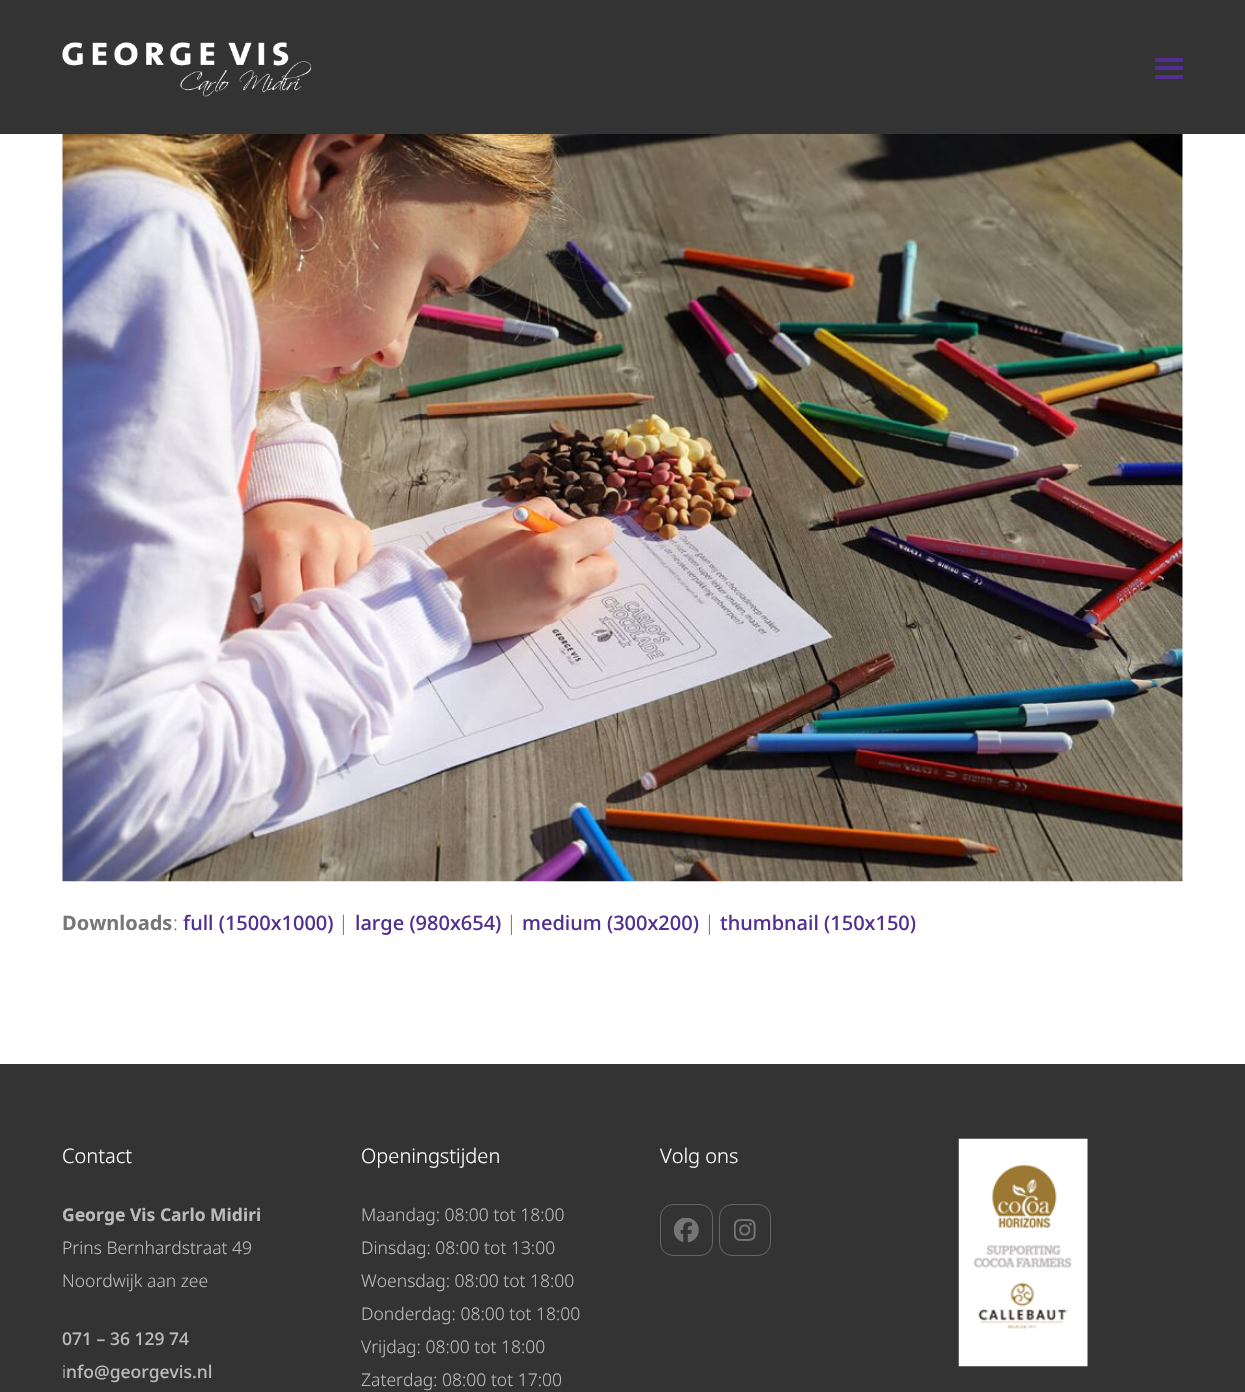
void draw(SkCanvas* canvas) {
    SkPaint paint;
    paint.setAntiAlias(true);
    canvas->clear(0xFFFFFFFF);
    paint.setColor(0xFF333333);
    canvas->drawRect(SkRect::MakeXYWH(0, 0, 1245, 134), paint);
    canvas->drawImageRect(SkImages::DeferredFromEncodedData(SkData::MakeFromFileName("img1.png")), SkRect::MakeXYWH(62, 42, 250, 55), SkSamplingOptions());
    paint.setColor(0xFF522F91);
    canvas->drawRect(SkRect::MakeXYWH(1155, 66, 28, 4), paint);
    canvas->drawRect(SkRect::MakeXYWH(1155, 58, 28, 4), paint);
    canvas->drawRect(SkRect::MakeXYWH(1155, 75, 28, 4), paint);
    canvas->drawImageRect(SkImages::DeferredFromEncodedData(SkData::MakeFromFileName("img2.png")), SkRect::MakeXYWH(62, 134, 1121, 748), SkSamplingOptions());
    SkFont font1(fontMgr->matchFamilyStyle("Noto Sans", SkFontStyle::Bold()), 20);
    font1.setSubpixel(true);
    paint.setColor(0xFF777777);
    canvas->drawString("Downloads", 62, 930, font1, paint);
    SkFont font2(fontMgr->matchFamilyStyle("Noto Sans", SkFontStyle(300, SkFontStyle::kNormal_Width, SkFontStyle::kUpright_Slant)), 20);
    font2.setSubpixel(true);
    canvas->drawString(":", 173, 930, font2, paint);
    SkFont font3(fontMgr->matchFamilyStyle("Noto Sans", SkFontStyle(500, SkFontStyle::kNormal_Width, SkFontStyle::kUpright_Slant)), 20);
    font3.setSubpixel(true);
    paint.setColor(0xFF522F91);
    canvas->drawString("full (1500x1000)", 183, 930, font3, paint);
    paint.setColor(0xFF777777);
    canvas->drawString("|", 338, 930, font2, paint);
    paint.setColor(0xFF522F91);
    canvas->drawString("large (980x654)", 355, 930, font3, paint);
    paint.setColor(0xFF777777);
    canvas->drawString("|", 506, 930, font2, paint);
    paint.setColor(0xFF522F91);
    canvas->drawString("medium (300x200)", 522, 930, font3, paint);
    paint.setColor(0xFF777777);
    canvas->drawString("|", 704, 930, font2, paint);
    paint.setColor(0xFF522F91);
    canvas->drawString("thumbnail (150x150)", 720, 930, font3, paint);
    paint.setColor(0xFF333333);
    canvas->drawRect(SkRect::MakeXYWH(0, 1064, 1245, 328), paint);
    paint.setColor(0xFFFFFFFF);
    canvas->drawString("Contact", 62, 1163, font2, paint);
    SkFont font4(fontMgr->matchFamilyStyle("Noto Sans", SkFontStyle::Bold()), 17.5f);
    font4.setSubpixel(true);
    paint.setColor(0xFFBBBBBB);
    canvas->drawString("George Vis Carlo Midiri", 62, 1221, font4, paint);
    SkFont font5(fontMgr->matchFamilyStyle("Noto Sans", SkFontStyle(300, SkFontStyle::kNormal_Width, SkFontStyle::kUpright_Slant)), 17.5f);
    font5.setSubpixel(true);
    canvas->drawString("Prins Bernhardstraat 49", 62, 1254, font5, paint);
    canvas->drawString("Noordwijk aan zee", 62, 1287, font5, paint);
    SkFont font6(fontMgr->matchFamilyStyle("Noto Sans", SkFontStyle(500, SkFontStyle::kNormal_Width, SkFontStyle::kUpright_Slant)), 17.5f);
    font6.setSubpixel(true);
    canvas->drawString("071 – 36 129 74", 62, 1345, font6, paint);
    canvas->drawString("i", 62, 1378, font5, paint);
    canvas->drawString("nfo@georgevis.nl", 66, 1378, font6, paint);
    paint.setColor(0xFFFFFFFF);
    canvas->drawString("Openingstijden", 361, 1163, font2, paint);
    paint.setColor(0xFFBBBBBB);
    canvas->drawString("Maandag: 08:00 tot 18:00", 361, 1221, font5, paint);
    canvas->drawString("Dinsdag: 08:00 tot 13:00", 361, 1254, font5, paint);
    canvas->drawString("Woensdag: 08:00 tot 18:00", 361, 1287, font5, paint);
    canvas->drawString("Donderdag: 08:00 tot 18:00", 361, 1320, font5, paint);
    canvas->drawString("Vrijdag: 08:00 tot 18:00", 361, 1353, font5, paint);
    canvas->drawString("Zaterdag: 08:00 tot 17:00", 361, 1386, font5, paint);
    paint.setColor(0xFFFFFFFF);
    canvas->drawString("Volg ons", 660, 1163, font2, paint);
    paint.setStyle(SkPaint::kStroke_Style);
    paint.setStrokeWidth(1);
    paint.setColor(0xFF666666);
    canvas->drawRoundRect(SkRect::MakeXYWH(660.5f, 1204.5f, 52, 51), 12.5f, 12.5f, paint);
    canvas->drawImageRect(SkImages::DeferredFromEncodedData(SkData::MakeFromFileName("img3.png")), SkRect::MakeXYWH(674, 1218, 25, 25), SkSamplingOptions());
    canvas->drawRoundRect(SkRect::MakeXYWH(719.5f, 1204.5f, 51, 51), 12.5f, 12.5f, paint);
    canvas->drawImageRect(SkImages::DeferredFromEncodedData(SkData::MakeFromFileName("img4.png")), SkRect::MakeXYWH(734, 1219, 22, 22), SkSamplingOptions());
    canvas->drawImageRect(SkImages::DeferredFromEncodedData(SkData::MakeFromFileName("img5.png")), SkRect::MakeXYWH(958, 1138, 130, 229), SkSamplingOptions());
}
